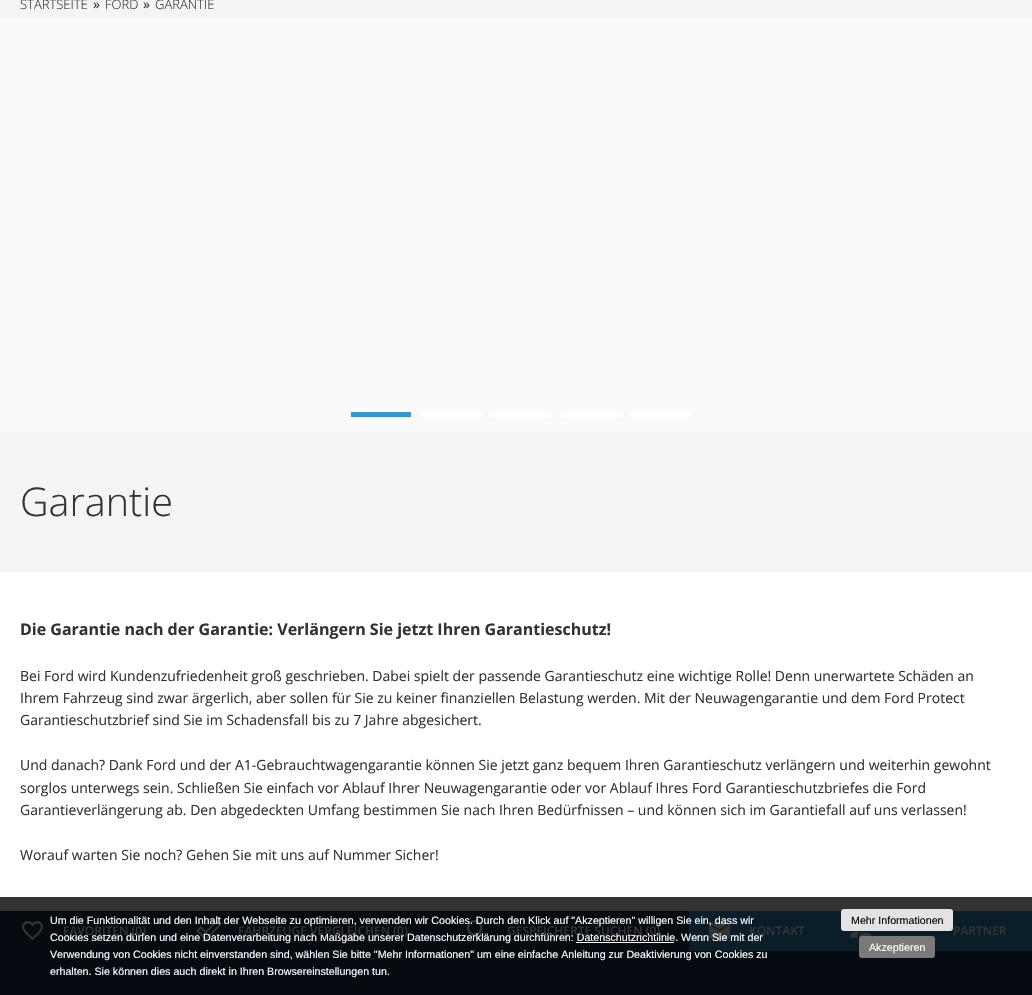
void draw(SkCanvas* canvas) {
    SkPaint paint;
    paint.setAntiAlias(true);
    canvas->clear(0xFFFFFFFF);
    paint.setColor(0xFF333333);
    canvas->drawRect(SkRect::MakeXYWH(0, 897, 1032, 14), paint);
    paint.setColor(0xFFF4F4F3);
    canvas->drawRect(SkRect::MakeXYWH(0, 0, 1032, 19), paint);
    SkFont font1(fontMgr->matchFamilyStyle("Open Sans", SkFontStyle(300, SkFontStyle::kNormal_Width, SkFontStyle::kUpright_Slant)), 13);
    font1.setSubpixel(true);
    paint.setColor(0xFF333333);
    canvas->drawString("STARTSEITE", 20, 9, font1, paint);
    SkFont font2(fontMgr->matchFamilyStyle("Open Sans", SkFontStyle::Normal()), 14);
    font2.setSubpixel(true);
    canvas->drawString("»", 93, 9, font2, paint);
    canvas->drawString("FORD", 105, 9, font1, paint);
    canvas->drawString("»", 143, 9, font2, paint);
    canvas->drawString("GARANTIE", 155, 9, font1, paint);
    paint.setColor(0xFFFAFAFA);
    canvas->drawRect(SkRect::MakeXYWH(0, 19, 1032, 413), paint);
    paint.setColor(0xFF3497CB);
    canvas->drawRect(SkRect::MakeXYWH(351, 412, 60, 5), paint);
    paint.setColor(0xFFFFFFFF);
    canvas->drawRect(SkRect::MakeXYWH(421, 412, 60, 5), paint);
    canvas->drawRect(SkRect::MakeXYWH(491, 412, 60, 5), paint);
    canvas->drawRect(SkRect::MakeXYWH(561, 412, 60, 5), paint);
    canvas->drawRect(SkRect::MakeXYWH(631, 412, 60, 5), paint);
    paint.setColor(0xFFF4F4F3);
    canvas->drawRect(SkRect::MakeXYWH(0, 432, 1032, 140), paint);
    SkFont font3(fontMgr->matchFamilyStyle("Open Sans", SkFontStyle(300, SkFontStyle::kNormal_Width, SkFontStyle::kUpright_Slant)), 39.5f);
    font3.setSubpixel(true);
    paint.setColor(0xFF333333);
    canvas->drawString("Garantie", 20, 516, font3, paint);
    SkFont font4(fontMgr->matchFamilyStyle("Open Sans", SkFontStyle::Bold()), 16);
    font4.setSubpixel(true);
    canvas->drawString("Die Garantie nach der Garantie: Verlängern Sie jetzt Ihren Garantieschutz!", 20, 635, font4, paint);
    canvas->drawString("Bei Ford wird Kundenzufriedenheit groß geschrieben. Dabei spielt der passende Garantieschutz eine wichtige Rolle! Denn unerwartete Schäden an", 20, 681, font2, paint);
    canvas->drawString("Ihrem Fahrzeug sind zwar ärgerlich, aber sollen für Sie zu keiner finanziellen Belastung werden. Mit der Neuwagengarantie und dem Ford Protect", 20, 703, font2, paint);
    canvas->drawString("Garantieschutzbrief sind Sie im Schadensfall bis zu 7 Jahre abgesichert.", 20, 725, font2, paint);
    canvas->drawString("Und danach? Dank Ford und der A1-Gebrauchtwagengarantie können Sie jetzt ganz bequem Ihren Garantieschutz verlängern und weiterhin gewohnt", 20, 770, font2, paint);
    canvas->drawString("sorglos unterwegs sein. Schließen Sie einfach vor Ablauf Ihrer Neuwagengarantie oder vor Ablauf Ihres Ford Garantieschutzbriefes die Ford", 20, 793, font2, paint);
    canvas->drawString("Garantieverlängerung ab. Den abgedeckten Umfang bestimmen Sie nach Ihren Bedürfnissen – und können sich im Garantiefall auf uns verlassen!", 20, 815, font2, paint);
    canvas->drawString("Worauf warten Sie noch? Gehen Sie mit uns auf Nummer Sicher!", 20, 860, font2, paint);
    paint.setColor(0xFF050B10);
    canvas->drawRect(SkRect::MakeXYWH(0, 911, 689, 40), paint);
    canvas->drawImageRect(SkImages::DeferredFromEncodedData(SkData::MakeFromFileName("img2.png")), SkRect::MakeXYWH(196, 920, 25, 21), SkSamplingOptions());
    canvas->drawImageRect(SkImages::DeferredFromEncodedData(SkData::MakeFromFileName("img3.png")), SkRect::MakeXYWH(466, 920, 22, 21), SkSamplingOptions());
    paint.setColor(0xFF0A1E29);
    canvas->drawRect(SkRect::MakeXYWH(689, 911, 343, 40), paint);
    canvas->drawImageRect(SkImages::DeferredFromEncodedData(SkData::MakeFromFileName("img4.png")), SkRect::MakeXYWH(709, 922, 21, 17), SkSamplingOptions());
    SkFont font5(fontMgr->matchFamilyStyle("Liberation Sans", SkFontStyle::Normal()), 10.67f);
    font5.setSubpixel(true);
    paint.setColor(0xFFFFFFFF);
    canvas->drawString("Um die Funktionalität und den Inhalt der Webseite zu optimieren, verwenden wir Cookies. Durch den Klick auf \"Akzeptieren\" willigen Sie ein, dass wir", 50, 924, font5, paint);
    canvas->drawString("Cookies setzen dürfen und eine Datenverarbeitung nach Maßgabe unserer Datenschutzerklärung durchführen: Datenschutzrichtlinie. Wenn Sie mit der", 50, 941, font5, paint);
    canvas->drawRect(SkRect::MakeXYWH(576, 942, 98, 1), paint);
    paint.setColor(0xFF050B10);
    canvas->drawRect(SkRect::MakeXYWH(0, 951, 1032, 44), paint);
    paint.setColor(0xFFFFFFFF);
    canvas->drawString("Verwendung von Cookies nicht einverstanden sind, wählen Sie bitte \"Mehr Informationen\" um eine einfache Anleitung zur Deaktivierung von Cookies zu", 50, 958, font5, paint);
    canvas->drawString("erhalten. Sie können dies auch direkt in Ihren Browsereinstellungen tun.", 50, 975, font5, paint);
    paint.setColor(0xFFE3E3E3);
    canvas->drawRoundRect(SkRect::MakeXYWH(841, 909, 112, 22), 3, 3, paint);
    paint.setColor(0xFF000000);
    canvas->drawString("Mehr Informationen", 851, 924, font5, paint);
    canvas->drawImageRect(SkImages::DeferredFromEncodedData(SkData::MakeFromFileName("img5.png")), SkRect::MakeXYWH(850, 931, 21, 7), SkSamplingOptions());
    paint.setColor(0xFF797979);
    canvas->drawRoundRect(SkRect::MakeXYWH(859, 936, 76, 22), 3, 3, paint);
    paint.setColor(0xFFFFFFFF);
    canvas->drawString("Akzeptieren", 869, 951, font5, paint);
    canvas->drawImageRect(SkImages::DeferredFromEncodedData(SkData::MakeFromFileName("img1.png")), SkRect::MakeXYWH(22, 921, 21, 20), SkSamplingOptions());
    SkFont font6(fontMgr->matchFamilyStyle("Open Sans", SkFontStyle(600, SkFontStyle::kNormal_Width, SkFontStyle::kUpright_Slant)), 12);
    font6.setSubpixel(true);
    paint.setColor(0xFF333333);
    canvas->drawString("FAVORITEN (0)", 63, 935, font6, paint);
    canvas->drawString("FAHRZEUGE VERGLEICHEN (0)", 238, 935, font6, paint);
    canvas->drawString("GESPEICHERTE SUCHEN (0)", 507, 935, font6, paint);
    canvas->drawString("KONTAKT", 749, 935, font6, paint);
    canvas->drawString("PARTNER", 953, 935, font6, paint);
}
